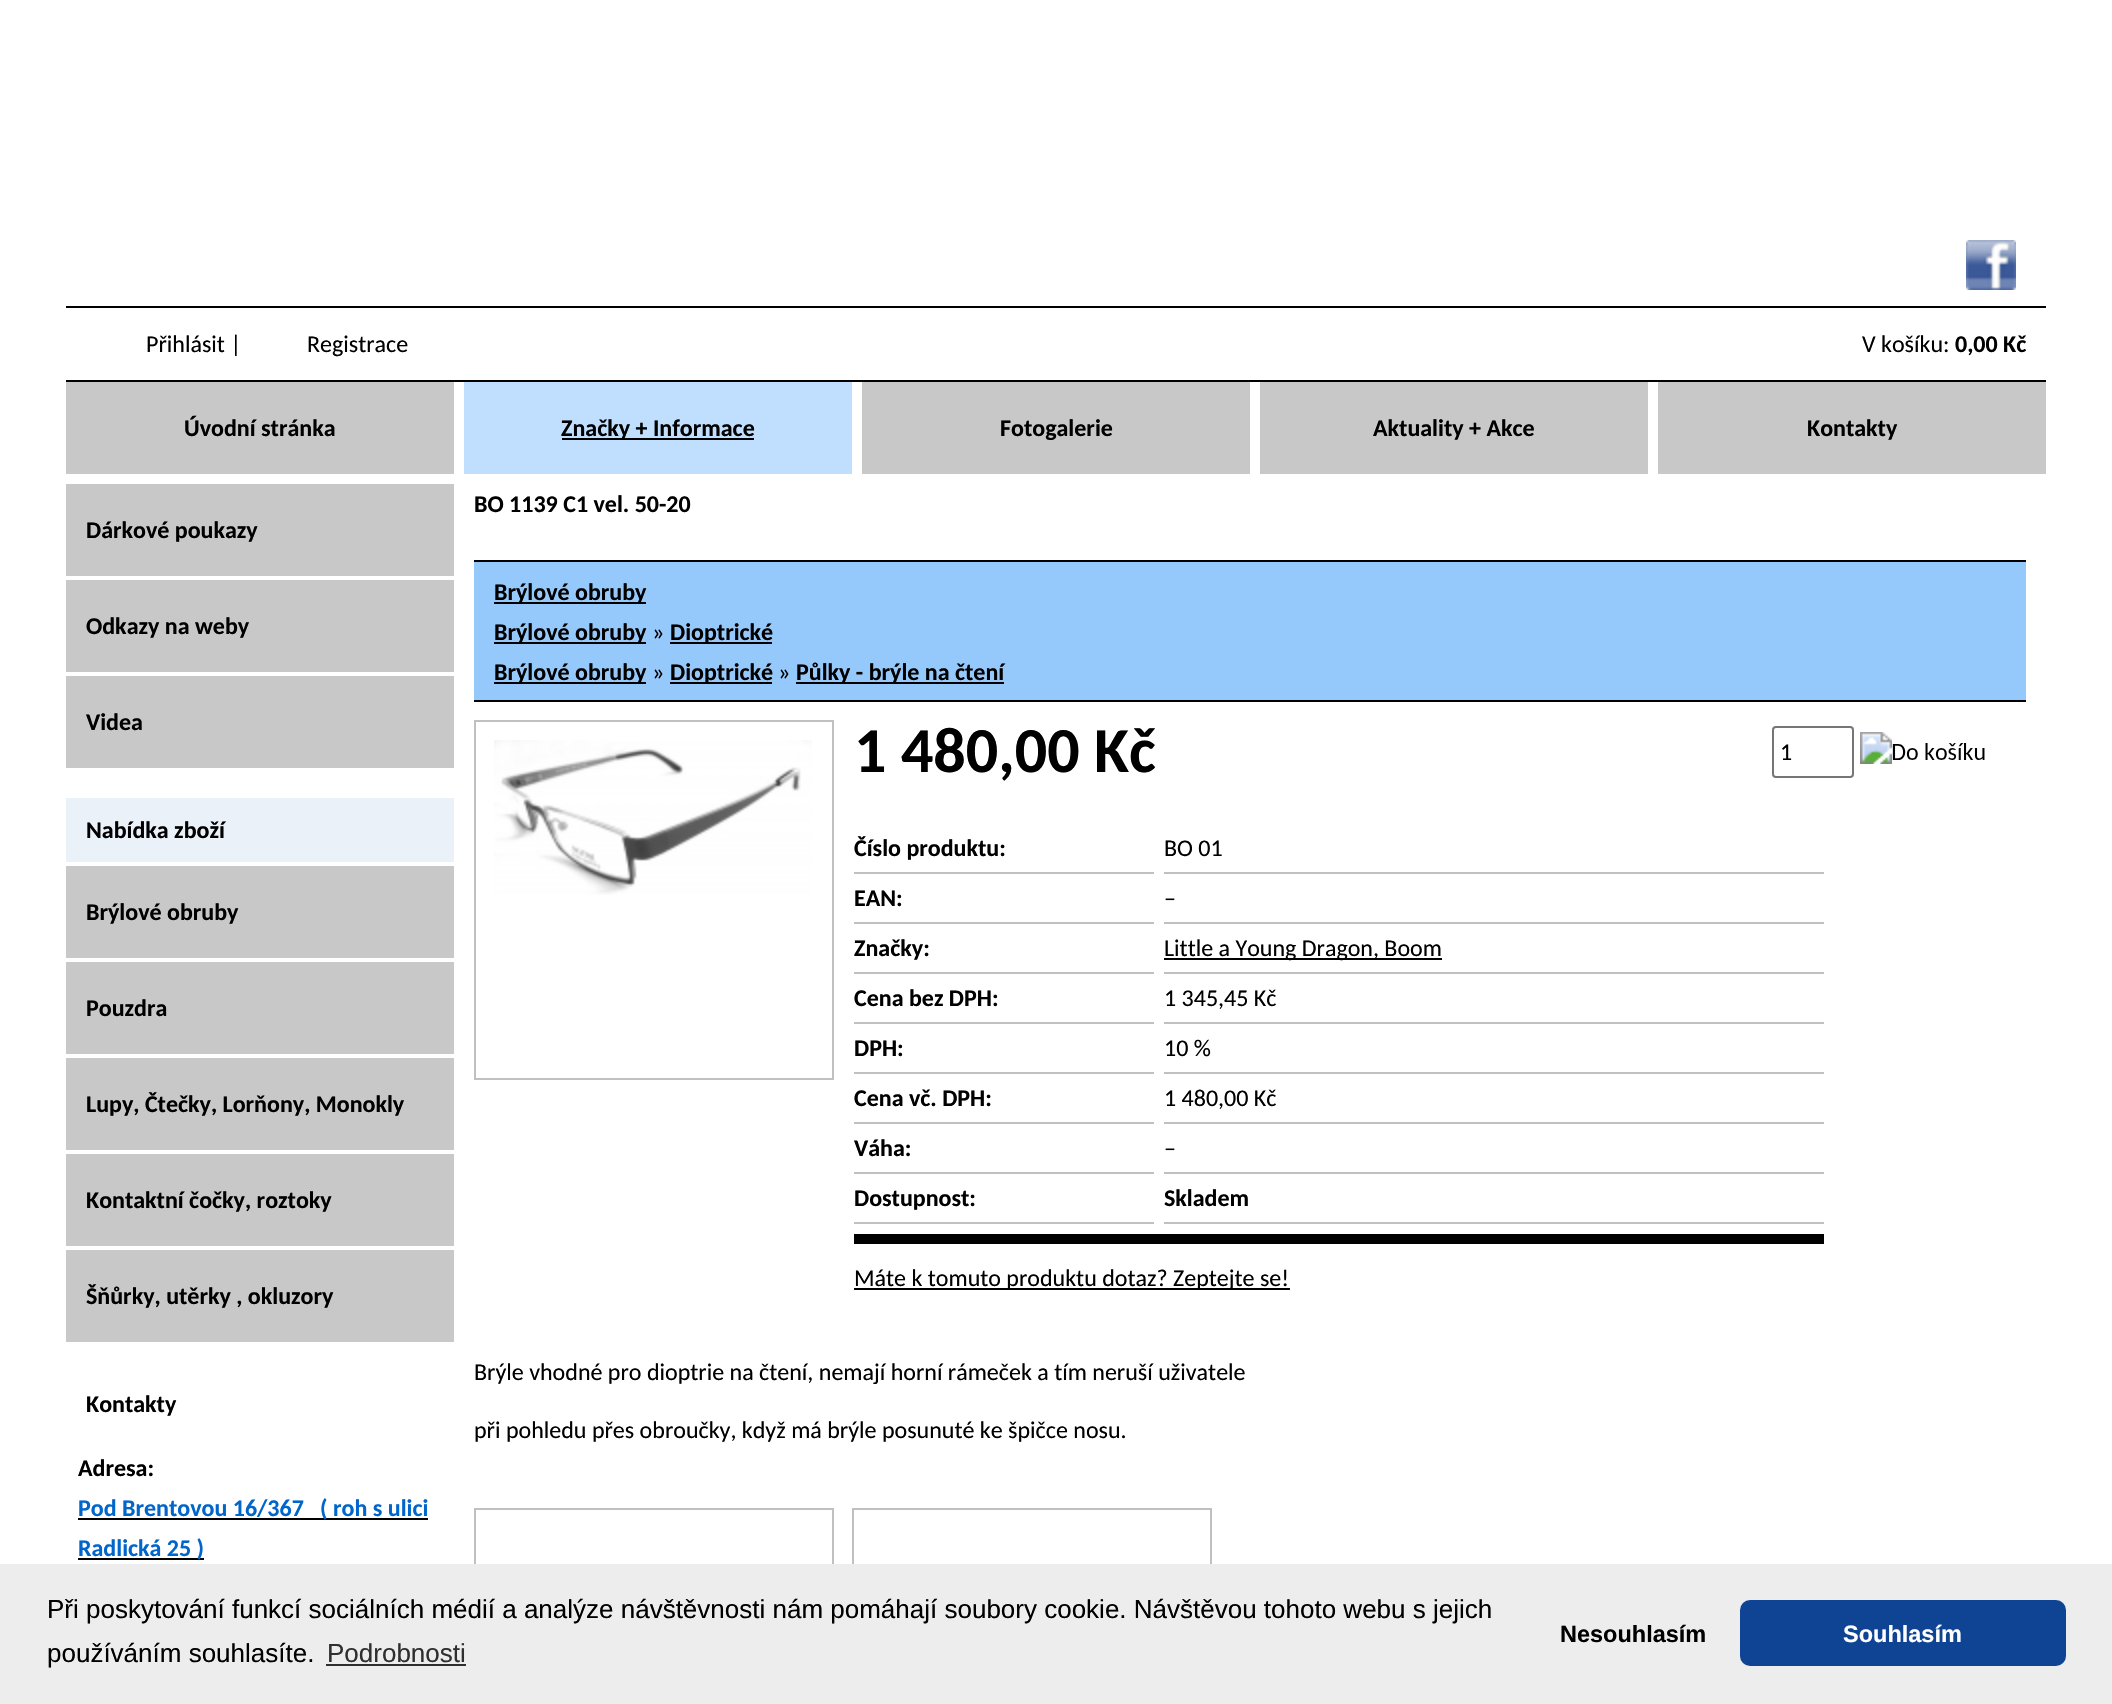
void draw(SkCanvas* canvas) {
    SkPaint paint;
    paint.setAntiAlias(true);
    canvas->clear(0xFFFFFFFF);
    canvas->drawImageRect(SkImages::DeferredFromEncodedData(SkData::MakeFromFileName("img1.png")), SkRect::MakeXYWH(1966, 240, 50, 50), SkSamplingOptions());
    paint.setColor(0xFF000000);
    canvas->drawRect(SkRect::MakeXYWH(66, 306, 1980, 2), paint);
    canvas->drawRect(SkRect::MakeXYWH(66, 380, 1980, 2), paint);
    SkFont font1(fontMgr->matchFamilyStyle("Carlito", SkFontStyle::Normal()), 24);
    font1.setSubpixel(true);
    canvas->drawString("Přihlásit |", 146, 352, font1, paint);
    canvas->drawString("Registrace", 307, 352, font1, paint);
    canvas->drawString("V košíku:", 1862, 352, font1, paint);
    SkFont font2(fontMgr->matchFamilyStyle("Carlito", SkFontStyle::Bold()), 24);
    font2.setSubpixel(true);
    canvas->drawString("0,00 Kč", 1955, 352, font2, paint);
    paint.setColor(0xFFC8C8C8);
    canvas->drawRect(SkRect::MakeXYWH(66, 382, 388, 92), paint);
    paint.setColor(0xFF000000);
    canvas->drawString("Úvodní stránka", 184, 436, font2, paint);
    paint.setColor(0xFFC0DFFE);
    canvas->drawRect(SkRect::MakeXYWH(464, 382, 388, 92), paint);
    paint.setColor(0xFF000000);
    canvas->drawRect(SkRect::MakeXYWH(562, 438, 192, 2), paint);
    canvas->drawString("Značky + Informace", 561, 436, font2, paint);
    paint.setColor(0xFFC8C8C8);
    canvas->drawRect(SkRect::MakeXYWH(862, 382, 388, 92), paint);
    paint.setColor(0xFF000000);
    canvas->drawString("Fotogalerie", 1000, 436, font2, paint);
    paint.setColor(0xFFC8C8C8);
    canvas->drawRect(SkRect::MakeXYWH(1260, 382, 388, 92), paint);
    paint.setColor(0xFF000000);
    canvas->drawString("Aktuality + Akce", 1373, 436, font2, paint);
    paint.setColor(0xFFC8C8C8);
    canvas->drawRect(SkRect::MakeXYWH(1658, 382, 388, 92), paint);
    paint.setColor(0xFF000000);
    canvas->drawString("Kontakty", 1807, 436, font2, paint);
    paint.setColor(0xFFC8C8C8);
    canvas->drawRect(SkRect::MakeXYWH(66, 484, 388, 92), paint);
    paint.setColor(0xFF000000);
    canvas->drawString("Dárkové poukazy", 86, 538, font2, paint);
    paint.setColor(0xFFC8C8C8);
    canvas->drawRect(SkRect::MakeXYWH(66, 580, 388, 92), paint);
    paint.setColor(0xFF000000);
    canvas->drawString("Odkazy na weby", 86, 634, font2, paint);
    paint.setColor(0xFFC8C8C8);
    canvas->drawRect(SkRect::MakeXYWH(66, 676, 388, 92), paint);
    paint.setColor(0xFF000000);
    canvas->drawString("Videa", 86, 730, font2, paint);
    paint.setColor(0xFFEAF1F9);
    canvas->drawRect(SkRect::MakeXYWH(66, 798, 388, 64), paint);
    paint.setColor(0xFF000000);
    canvas->drawString("Nabídka zboží", 86, 838, font2, paint);
    paint.setColor(0xFFC8C8C8);
    canvas->drawRect(SkRect::MakeXYWH(66, 866, 388, 92), paint);
    paint.setColor(0xFF000000);
    canvas->drawString("Brýlové obruby", 86, 920, font2, paint);
    paint.setColor(0xFFC8C8C8);
    canvas->drawRect(SkRect::MakeXYWH(66, 962, 388, 92), paint);
    paint.setColor(0xFF000000);
    canvas->drawString("Pouzdra", 86, 1016, font2, paint);
    paint.setColor(0xFFC8C8C8);
    canvas->drawRect(SkRect::MakeXYWH(66, 1058, 388, 92), paint);
    paint.setColor(0xFF000000);
    canvas->drawString("Lupy, Čtečky, Lorňony, Monokly", 86, 1112, font2, paint);
    paint.setColor(0xFFC8C8C8);
    canvas->drawRect(SkRect::MakeXYWH(66, 1154, 388, 92), paint);
    paint.setColor(0xFF000000);
    canvas->drawString("Kontaktní čočky, roztoky", 86, 1208, font2, paint);
    paint.setColor(0xFFC8C8C8);
    canvas->drawRect(SkRect::MakeXYWH(66, 1250, 388, 92), paint);
    paint.setColor(0xFF000000);
    canvas->drawString("Šňůrky, utěrky , okluzory", 86, 1304, font2, paint);
    canvas->drawString("Kontakty", 86, 1412, font2, paint);
    canvas->drawString("Adresa:", 78, 1476, font2, paint);
    canvas->drawRect(SkRect::MakeXYWH(78, 1518, 350, 2), paint);
    paint.setColor(0xFF0066CC);
    canvas->drawString("Pod Brentovou 16/367   ( roh s ulici", 78, 1516, font2, paint);
    paint.setColor(0xFF000000);
    canvas->drawRect(SkRect::MakeXYWH(78, 1558, 126, 2), paint);
    paint.setColor(0xFF0066CC);
    canvas->drawString("Radlická 25 )", 78, 1556, font2, paint);
    paint.setColor(0xFF000000);
    canvas->drawString("BO 1139 C1 vel. 50-20", 474, 512, font2, paint);
    paint.setColor(0xFF95C9FB);
    canvas->drawRect(SkRect::MakeXYWH(474, 562, 1552, 138), paint);
    paint.setColor(0xFF000000);
    canvas->drawRect(SkRect::MakeXYWH(474, 560, 1552, 2), paint);
    canvas->drawRect(SkRect::MakeXYWH(474, 700, 1552, 2), paint);
    canvas->drawRect(SkRect::MakeXYWH(494, 602, 152, 2), paint);
    canvas->drawString("Brýlové obruby", 494, 600, font2, paint);
    canvas->drawRect(SkRect::MakeXYWH(494, 642, 152, 2), paint);
    canvas->drawString("Brýlové obruby", 494, 640, font2, paint);
    canvas->drawString("»", 652, 640, font1, paint);
    canvas->drawRect(SkRect::MakeXYWH(670, 642, 102, 2), paint);
    canvas->drawString("Dioptrické", 670, 640, font2, paint);
    canvas->drawRect(SkRect::MakeXYWH(494, 682, 152, 2), paint);
    canvas->drawString("Brýlové obruby", 494, 680, font2, paint);
    canvas->drawString("»", 652, 680, font1, paint);
    canvas->drawRect(SkRect::MakeXYWH(670, 682, 102, 2), paint);
    canvas->drawString("Dioptrické", 670, 680, font2, paint);
    canvas->drawString("»", 778, 680, font1, paint);
    canvas->drawRect(SkRect::MakeXYWH(796, 682, 208, 2), paint);
    canvas->drawString("Půlky - brýle na čtení", 796, 680, font2, paint);
    paint.setStyle(SkPaint::kStroke_Style);
    paint.setStrokeWidth(2);
    paint.setColor(0xFFC0C0C0);
    canvas->drawRect(SkRect::MakeXYWH(475, 721, 358, 358), paint);
    canvas->drawImageRect(SkImages::DeferredFromEncodedData(SkData::MakeFromFileName("img2.png")), SkRect::MakeXYWH(494, 740, 318, 155), SkSamplingOptions());
    SkFont font3(fontMgr->matchFamilyStyle("Carlito", SkFontStyle::Bold()), 64);
    font3.setSubpixel(true);
    paint.setStyle(SkPaint::kFill_Style);
    paint.setColor(0xFF000000);
    canvas->drawString("1 480,00 Kč", 854, 772, font3, paint);
    paint.setStyle(SkPaint::kStroke_Style);
    paint.setColor(0xFF767676);
    canvas->drawRoundRect(SkRect::MakeXYWH(1773, 727, 80, 50), 3, 3, paint);
    paint.setStyle(SkPaint::kFill_Style);
    paint.setColor(0xFF000000);
    canvas->drawString("1", 1780, 760, font1, paint);
    canvas->drawImageRect(SkImages::DeferredFromEncodedData(SkData::MakeFromFileName("img3.png")), SkRect::MakeXYWH(1860, 732, 125, 32), SkSamplingOptions());
    canvas->drawRect(SkRect::MakeXYWH(854, 1234, 970, 10), paint);
    paint.setColor(0xFFC0C0C0);
    canvas->drawRect(SkRect::MakeXYWH(854, 872, 300, 2), paint);
    paint.setColor(0xFF000000);
    canvas->drawString("Číslo produktu:", 854, 856, font2, paint);
    paint.setColor(0xFFC0C0C0);
    canvas->drawRect(SkRect::MakeXYWH(1164, 872, 660, 2), paint);
    paint.setColor(0xFF000000);
    canvas->drawString("BO 01", 1164, 856, font1, paint);
    paint.setColor(0xFFC0C0C0);
    canvas->drawRect(SkRect::MakeXYWH(854, 922, 300, 2), paint);
    paint.setColor(0xFF000000);
    canvas->drawString("EAN:", 854, 906, font2, paint);
    paint.setColor(0xFFC0C0C0);
    canvas->drawRect(SkRect::MakeXYWH(1164, 922, 660, 2), paint);
    paint.setColor(0xFF000000);
    canvas->drawString("–", 1164, 906, font1, paint);
    paint.setColor(0xFFC0C0C0);
    canvas->drawRect(SkRect::MakeXYWH(854, 972, 300, 2), paint);
    paint.setColor(0xFF000000);
    canvas->drawString("Značky:", 854, 956, font2, paint);
    paint.setColor(0xFFC0C0C0);
    canvas->drawRect(SkRect::MakeXYWH(1164, 972, 660, 2), paint);
    paint.setColor(0xFF000000);
    canvas->drawRect(SkRect::MakeXYWH(1164, 958, 278, 2), paint);
    canvas->drawString("Little a Young Dragon, Boom", 1164, 956, font1, paint);
    paint.setColor(0xFFC0C0C0);
    canvas->drawRect(SkRect::MakeXYWH(854, 1022, 300, 2), paint);
    paint.setColor(0xFF000000);
    canvas->drawString("Cena bez DPH:", 854, 1006, font2, paint);
    paint.setColor(0xFFC0C0C0);
    canvas->drawRect(SkRect::MakeXYWH(1164, 1022, 660, 2), paint);
    paint.setColor(0xFF000000);
    canvas->drawString("1 345,45 Kč", 1164, 1006, font1, paint);
    paint.setColor(0xFFC0C0C0);
    canvas->drawRect(SkRect::MakeXYWH(854, 1072, 300, 2), paint);
    paint.setColor(0xFF000000);
    canvas->drawString("DPH:", 854, 1056, font2, paint);
    paint.setColor(0xFFC0C0C0);
    canvas->drawRect(SkRect::MakeXYWH(1164, 1072, 660, 2), paint);
    paint.setColor(0xFF000000);
    canvas->drawString("10 %", 1164, 1056, font1, paint);
    paint.setColor(0xFFC0C0C0);
    canvas->drawRect(SkRect::MakeXYWH(854, 1122, 300, 2), paint);
    paint.setColor(0xFF000000);
    canvas->drawString("Cena vč. DPH:", 854, 1106, font2, paint);
    paint.setColor(0xFFC0C0C0);
    canvas->drawRect(SkRect::MakeXYWH(1164, 1122, 660, 2), paint);
    paint.setColor(0xFF000000);
    canvas->drawString("1 480,00 Kč", 1164, 1106, font1, paint);
    paint.setColor(0xFFC0C0C0);
    canvas->drawRect(SkRect::MakeXYWH(854, 1172, 300, 2), paint);
    paint.setColor(0xFF000000);
    canvas->drawString("Váha:", 854, 1156, font2, paint);
    paint.setColor(0xFFC0C0C0);
    canvas->drawRect(SkRect::MakeXYWH(1164, 1172, 660, 2), paint);
    paint.setColor(0xFF000000);
    canvas->drawString("–", 1164, 1156, font1, paint);
    paint.setColor(0xFFC0C0C0);
    canvas->drawRect(SkRect::MakeXYWH(854, 1222, 300, 2), paint);
    paint.setColor(0xFF000000);
    canvas->drawString("Dostupnost:", 854, 1206, font2, paint);
    paint.setColor(0xFFC0C0C0);
    canvas->drawRect(SkRect::MakeXYWH(1164, 1222, 660, 2), paint);
    paint.setColor(0xFF000000);
    canvas->drawString("Skladem", 1164, 1206, font2, paint);
    canvas->drawRect(SkRect::MakeXYWH(854, 1288, 436, 2), paint);
    canvas->drawString("Máte k tomuto produktu dotaz? Zeptejte se!", 854, 1286, font1, paint);
    canvas->drawString("Brýle vhodné pro dioptrie na čtení, nemají horní rámeček a tím neruší uživatele", 474, 1380, font1, paint);
    canvas->drawString("při pohledu přes obroučky, když má brýle posunuté ke špičce nosu.", 474, 1438, font1, paint);
    paint.setStyle(SkPaint::kStroke_Style);
    paint.setColor(0xFFC0C0C0);
    canvas->drawRect(SkRect::MakeXYWH(475, 1509, 358, 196), paint);
    canvas->drawRect(SkRect::MakeXYWH(853, 1509, 358, 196), paint);
    paint.setStyle(SkPaint::kFill_Style);
    paint.setColor(0xFFEDEDED);
    canvas->drawRect(SkRect::MakeXYWH(0, 1564, 2112, 140), paint);
    SkFont font4(fontMgr->matchFamilyStyle("Liberation Sans", SkFontStyle::Normal()), 26);
    font4.setSubpixel(true);
    paint.setColor(0xFF000000);
    canvas->drawString("Při poskytování funkcí sociálních médií a analýze návštěvnosti nám pomáhají soubory cookie. Návštěvou tohoto webu s jejich", 47, 1618, font4, paint);
    canvas->drawString("používáním souhlasíte.", 47, 1662, font4, paint);
    paint.setColor(0xFF2F2F2F);
    canvas->drawString("Podrobnosti", 327, 1662, font4, paint);
    canvas->drawRect(SkRect::MakeXYWH(326, 1664, 140, 2), paint);
    SkFont font5(fontMgr->matchFamilyStyle("Liberation Sans", SkFontStyle::Bold()), 23.5f);
    font5.setSubpixel(true);
    paint.setColor(0xFF000000);
    canvas->drawString("Nesouhlasím", 1560, 1642, font5, paint);
    paint.setColor(0xFF0F4494);
    canvas->drawRoundRect(SkRect::MakeXYWH(1740, 1600, 326, 66), 10, 10, paint);
    paint.setColor(0xFFFFFFFF);
    canvas->drawString("Souhlasím", 1843, 1642, font5, paint);
}
